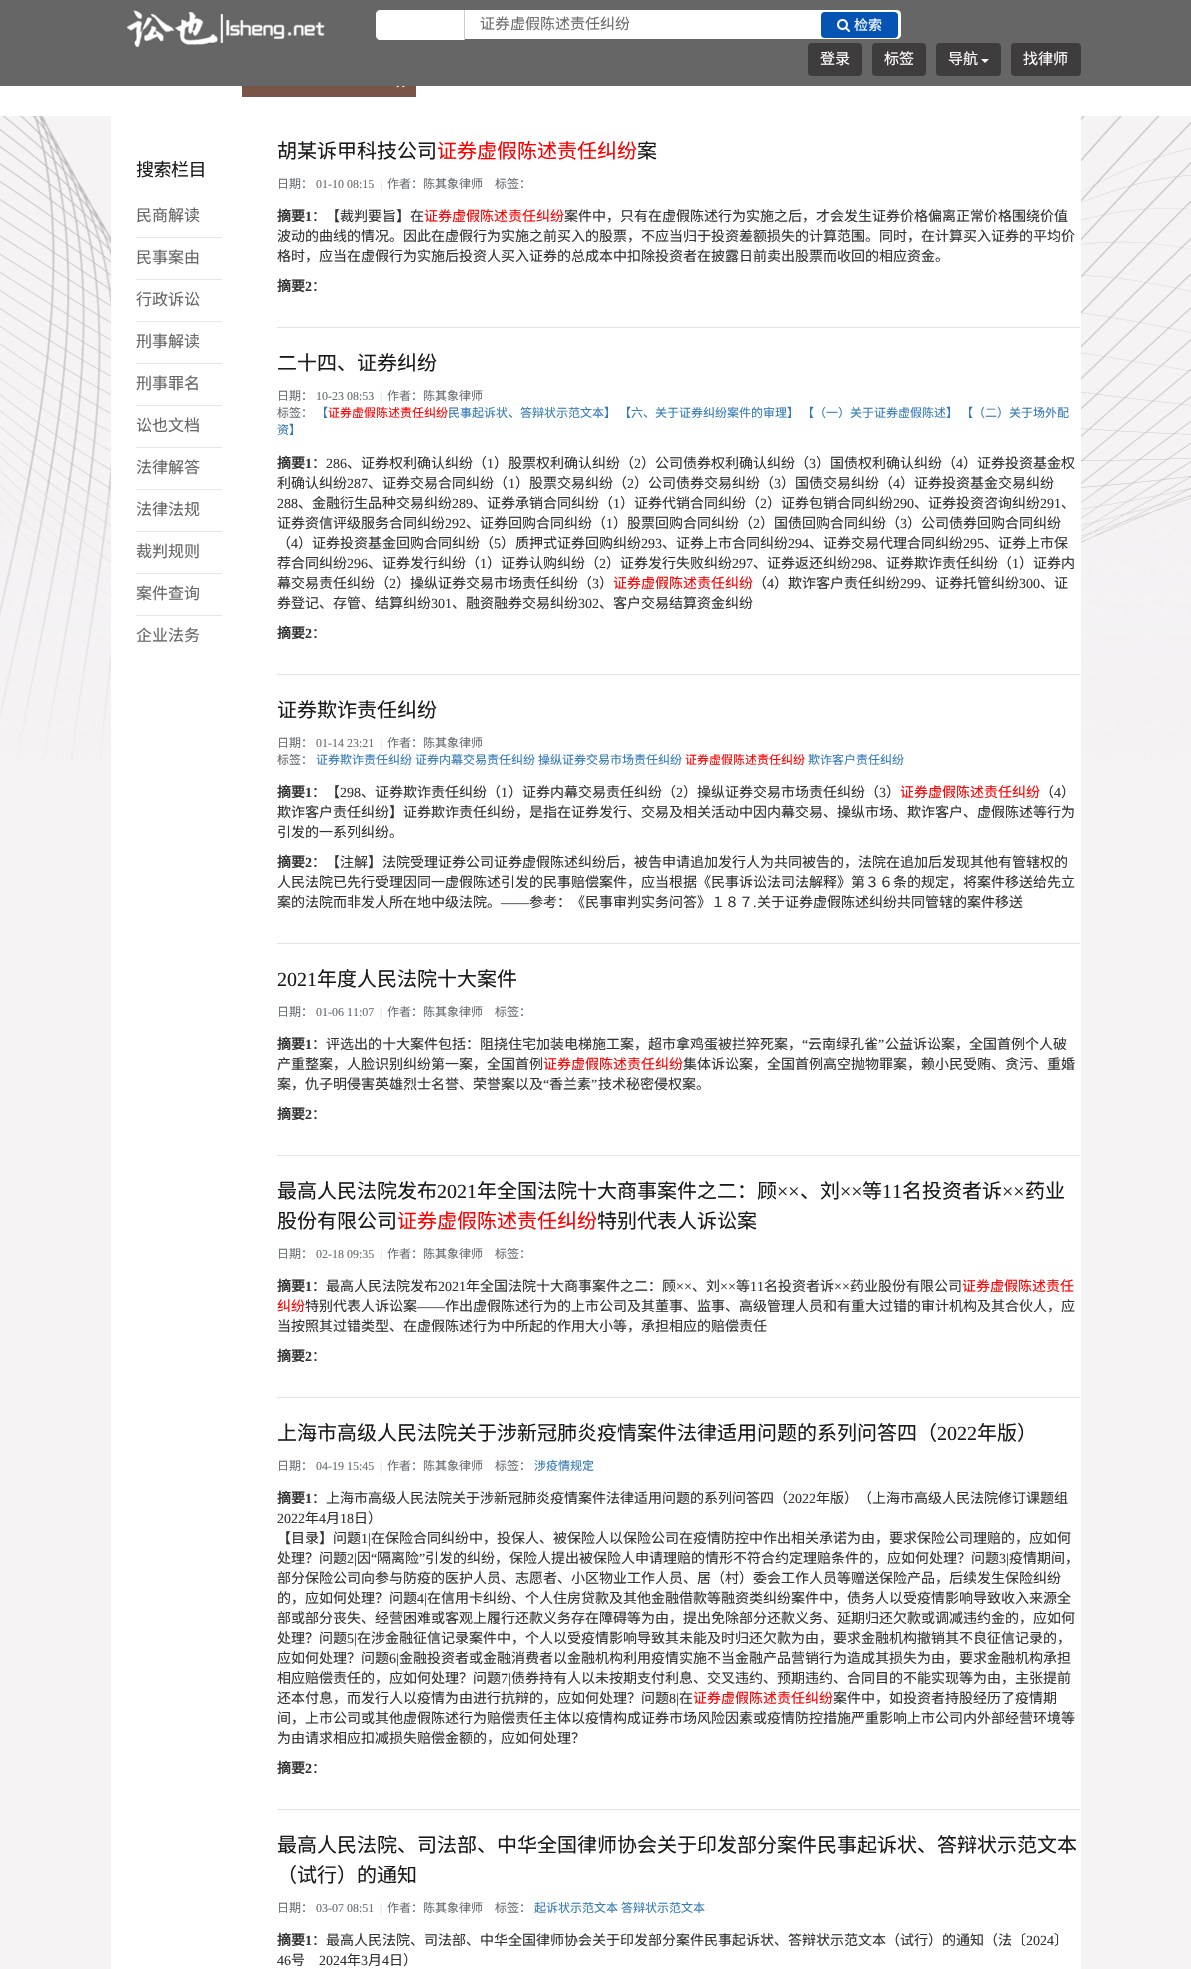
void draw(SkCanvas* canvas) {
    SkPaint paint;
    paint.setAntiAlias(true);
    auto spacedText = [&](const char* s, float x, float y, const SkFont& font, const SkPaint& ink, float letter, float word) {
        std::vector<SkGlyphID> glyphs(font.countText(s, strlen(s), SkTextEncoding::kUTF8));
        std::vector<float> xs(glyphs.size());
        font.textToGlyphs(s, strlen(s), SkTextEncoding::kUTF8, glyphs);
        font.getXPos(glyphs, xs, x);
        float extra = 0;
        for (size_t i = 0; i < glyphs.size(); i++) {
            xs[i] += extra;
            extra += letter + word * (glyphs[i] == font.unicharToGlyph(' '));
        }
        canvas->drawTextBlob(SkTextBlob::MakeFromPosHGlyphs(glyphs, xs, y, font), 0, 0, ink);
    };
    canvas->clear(0xFFF5F3F4);
    canvas->drawImageRect(SkImages::DeferredFromEncodedData(SkData::MakeFromFileName("img1.png")), SkRect::MakeXYWH(0, 116, 1191, 644), SkSamplingOptions());
    paint.setColor(0xFF666666);
    canvas->drawRect(SkRect::MakeXYWH(0, 0, 1191, 86), paint);
    canvas->drawImageRect(SkImages::DeferredFromEncodedData(SkData::MakeFromFileName("img2.png")), SkRect::MakeXYWH(126, 10, 199, 37), SkSamplingOptions());
    paint.setColor(0xFFFFFFFF);
    canvas->drawPath(SkPathBuilder().moveTo(380, 10).lineTo(465, 10).lineTo(465, 40).lineTo(380, 40).cubicTo(378, 40, 376, 38, 376, 36).lineTo(376, 14).cubicTo(376, 12, 378, 10, 380, 10).close().detach(), paint);
    paint.setColor(0xFFCCCCCC);
    canvas->drawRect(SkRect::MakeXYWH(464, 10, 1, 30), paint);
    paint.setColor(0xFFFFFFFF);
    canvas->drawPath(SkPathBuilder().moveTo(465, 10).lineTo(897, 10).cubicTo(899, 10, 901, 12, 901, 14).lineTo(901, 35).cubicTo(901, 37, 899, 39, 897, 39).lineTo(465, 39).close().detach(), paint);
    SkFont font1(fontMgr->matchFamilyStyle("Noto Sans CJK SC", SkFontStyle::Normal()), 15);
    font1.setSubpixel(true);
    paint.setColor(0xFF6E6C6C);
    canvas->drawString("证券虚假陈述责任纠纷", 480, 29, font1, paint);
    paint.setColor(0xFF0553B3);
    canvas->drawRoundRect(SkRect::MakeXYWH(821, 12, 77, 26), 4, 4, paint);
    canvas->drawImageRect(SkImages::DeferredFromEncodedData(SkData::MakeFromFileName("img3.png")), SkRect::MakeXYWH(837, 19, 13, 13), SkSamplingOptions());
    SkFont font2(fontMgr->matchFamilyStyle("Noto Sans CJK SC", SkFontStyle::Normal()), 14);
    font2.setSubpixel(true);
    paint.setColor(0xFFFFFFFF);
    canvas->drawString("检索", 854, 30, font2, paint);
    paint.setColor(0xFF3E3C3C);
    canvas->drawRoundRect(SkRect::MakeXYWH(808, 43, 54, 33), 4, 4, paint);
    paint.setColor(0xFFFFFFFF);
    canvas->drawString("登录", 820, 64, font1, paint);
    paint.setColor(0xFF3E3C3C);
    canvas->drawRoundRect(SkRect::MakeXYWH(872, 43, 54, 33), 4, 4, paint);
    paint.setColor(0xFFFFFFFF);
    canvas->drawString("标签", 884, 64, font1, paint);
    paint.setColor(0xFF3E3C3C);
    canvas->drawRoundRect(SkRect::MakeXYWH(936, 43, 65, 33), 4, 4, paint);
    paint.setColor(0xFFFFFFFF);
    canvas->drawString("导航", 948, 64, font1, paint);
    canvas->drawPath(SkPathBuilder().moveTo(981, 59).lineTo(989, 59).lineTo(985, 63).close().detach(), paint);
    paint.setColor(0xFF3E3C3C);
    canvas->drawRoundRect(SkRect::MakeXYWH(1011, 43, 70, 33), 4, 4, paint);
    paint.setColor(0xFFFFFFFF);
    canvas->drawString("找律师", 1023, 64, font1, paint);
    canvas->drawRect(SkRect::MakeXYWH(0, 86, 1191, 30), paint);
    paint.setColor(0xFF795548);
    canvas->drawRect(SkRect::MakeXYWH(242, 86, 174, 11), paint);
    canvas->drawImageRect(SkImages::DeferredFromEncodedData(SkData::MakeFromFileName("img4.png")), SkRect::MakeXYWH(396, 86, 9, 2), SkSamplingOptions());
    paint.setColor(0xFFFFFFFF);
    canvas->drawRect(SkRect::MakeXYWH(111, 116, 970, 1853), paint);
    SkFont font3(fontMgr->matchFamilyStyle("Noto Sans CJK SC", SkFontStyle::Normal()), 18);
    font3.setSubpixel(true);
    paint.setColor(0xFF1A1A1A);
    spacedText("搜索栏目", 136, 176, font3, paint, -0.5f, 0);
    paint.setColor(0xFFE5E7E9);
    canvas->drawRect(SkRect::MakeXYWH(136, 237, 86, 1), paint);
    SkFont font4(fontMgr->matchFamilyStyle("Noto Sans CJK SC", SkFontStyle::Normal()), 16);
    font4.setSubpixel(true);
    paint.setColor(0xFF666666);
    canvas->drawString("民商解读", 136, 221, font4, paint);
    paint.setColor(0xFFE5E7E9);
    canvas->drawRect(SkRect::MakeXYWH(136, 279, 86, 1), paint);
    paint.setColor(0xFF666666);
    canvas->drawString("民事案由", 136, 263, font4, paint);
    paint.setColor(0xFFE5E7E9);
    canvas->drawRect(SkRect::MakeXYWH(136, 321, 86, 1), paint);
    paint.setColor(0xFF666666);
    canvas->drawString("行政诉讼", 136, 305, font4, paint);
    paint.setColor(0xFFE5E7E9);
    canvas->drawRect(SkRect::MakeXYWH(136, 363, 86, 1), paint);
    paint.setColor(0xFF666666);
    canvas->drawString("刑事解读", 136, 347, font4, paint);
    paint.setColor(0xFFE5E7E9);
    canvas->drawRect(SkRect::MakeXYWH(136, 405, 86, 1), paint);
    paint.setColor(0xFF666666);
    canvas->drawString("刑事罪名", 136, 389, font4, paint);
    paint.setColor(0xFFE5E7E9);
    canvas->drawRect(SkRect::MakeXYWH(136, 447, 86, 1), paint);
    paint.setColor(0xFF666666);
    canvas->drawString("讼也文档", 136, 431, font4, paint);
    paint.setColor(0xFFE5E7E9);
    canvas->drawRect(SkRect::MakeXYWH(136, 489, 86, 1), paint);
    paint.setColor(0xFF666666);
    canvas->drawString("法律解答", 136, 473, font4, paint);
    paint.setColor(0xFFE5E7E9);
    canvas->drawRect(SkRect::MakeXYWH(136, 531, 86, 1), paint);
    paint.setColor(0xFF666666);
    canvas->drawString("法律法规", 136, 515, font4, paint);
    paint.setColor(0xFFE5E7E9);
    canvas->drawRect(SkRect::MakeXYWH(136, 573, 86, 1), paint);
    paint.setColor(0xFF666666);
    canvas->drawString("裁判规则", 136, 557, font4, paint);
    paint.setColor(0xFFE5E7E9);
    canvas->drawRect(SkRect::MakeXYWH(136, 615, 86, 1), paint);
    paint.setColor(0xFF666666);
    canvas->drawString("案件查询", 136, 599, font4, paint);
    canvas->drawString("企业法务", 136, 641, font4, paint);
    paint.setColor(0xFFE1E3E6);
    canvas->drawRect(SkRect::MakeXYWH(277, 327, 803, 1), paint);
    SkFont font5(fontMgr->matchFamilyStyle("Noto Sans CJK SC", SkFontStyle::Normal()), 20);
    font5.setSubpixel(true);
    paint.setColor(0xFF1A1A1A);
    canvas->drawString("胡某诉甲科技公司", 277, 158, font5, paint);
    paint.setColor(0xFFFF0000);
    canvas->drawString("证券虚假陈述责任纠纷", 437, 158, font5, paint);
    paint.setColor(0xFF1A1A1A);
    canvas->drawString("案", 637, 158, font5, paint);
    SkFont font6(fontMgr->matchFamilyStyle("Noto Sans CJK SC", SkFontStyle::Normal()), 12);
    font6.setSubpixel(true);
    paint.setColor(0xFF666D73);
    canvas->drawString("日期：", 277, 188, font6, paint);
    SkFont font7(fontMgr->matchFamilyStyle("Liberation Serif", SkFontStyle::Normal()), 12);
    font7.setSubpixel(true);
    canvas->drawString("01-10 08:15", 316, 188, font7, paint);
    paint.setColor(0xFFE1E3E6);
    canvas->drawString("|", 380, 188, font7, paint);
    paint.setColor(0xFF666D73);
    canvas->drawString("作者：陈其象律师", 387, 188, font6, paint);
    canvas->drawString("标签：", 495, 188, font6, paint);
    SkFont font8(fontMgr->matchFamilyStyle("Noto Sans CJK SC", SkFontStyle::Bold()), 14);
    font8.setSubpixel(true);
    paint.setColor(0xFF333333);
    canvas->drawString("摘要", 277, 221, font8, paint);
    SkFont font9(fontMgr->matchFamilyStyle("Liberation Serif", SkFontStyle::Bold()), 14);
    font9.setSubpixel(true);
    canvas->drawString("1", 305, 221, font9, paint);
    canvas->drawString("：【裁判要旨】在", 312, 221, font2, paint);
    paint.setColor(0xFFFF0000);
    canvas->drawString("证券虚假陈述责任纠纷", 424, 221, font2, paint);
    paint.setColor(0xFF333333);
    canvas->drawString("案件中，只有在虚假陈述行为实施之后，才会发生证券价格偏离正常价格围绕价值", 564, 221, font2, paint);
    canvas->drawString("波动的曲线的情况。因此在虚假行为实施之前买入的股票，不应当归于投资差额损失的计算范围。同时，在计算买入证券的平均价", 277, 241, font2, paint);
    canvas->drawString("格时，应当在虚假行为实施后投资人买入证券的总成本中扣除投资者在披露日前卖出股票而收回的相应资金。", 277, 261, font2, paint);
    canvas->drawString("摘要", 277, 291, font8, paint);
    canvas->drawString("2", 305, 291, font9, paint);
    canvas->drawString("：", 312, 291, font2, paint);
    paint.setColor(0xFFE1E3E6);
    canvas->drawRect(SkRect::MakeXYWH(277, 674, 803, 1), paint);
    paint.setColor(0xFF1A1A1A);
    canvas->drawString("二十四、证券纠纷", 277, 370, font5, paint);
    paint.setColor(0xFF666D73);
    canvas->drawString("日期：", 277, 400, font6, paint);
    canvas->drawString("10-23 08:53", 316, 400, font7, paint);
    paint.setColor(0xFFE1E3E6);
    canvas->drawString("|", 380, 400, font7, paint);
    paint.setColor(0xFF666D73);
    canvas->drawString("作者：陈其象律师", 387, 400, font6, paint);
    canvas->drawString("标签：", 277, 417, font6, paint);
    paint.setColor(0xFF337AB7);
    canvas->drawString("【", 316, 417, font6, paint);
    paint.setColor(0xFFFF0000);
    canvas->drawString("证券虚假陈述责任纠纷", 328, 417, font6, paint);
    paint.setColor(0xFF337AB7);
    canvas->drawString("民事起诉状、答辩状示范文本】", 448, 417, font6, paint);
    canvas->drawString("【六、关于证券纠纷案件的审理】", 619, 417, font6, paint);
    canvas->drawString("【（一）关于证券虚假陈述】", 802, 417, font6, paint);
    canvas->drawString("【（二）关于场外配", 961, 417, font6, paint);
    canvas->drawString("资】", 277, 434, font6, paint);
    paint.setColor(0xFF333333);
    canvas->drawString("摘要", 277, 468, font8, paint);
    canvas->drawString("1", 305, 468, font9, paint);
    canvas->drawString("：", 312, 468, font2, paint);
    SkFont font10(fontMgr->matchFamilyStyle("Liberation Serif", SkFontStyle::Normal()), 14);
    font10.setSubpixel(true);
    canvas->drawString("286", 326, 468, font10, paint);
    canvas->drawString("、证券权利确认纠纷（", 347, 468, font2, paint);
    canvas->drawString("1", 487, 468, font10, paint);
    canvas->drawString("）股票权利确认纠纷（", 494, 468, font2, paint);
    canvas->drawString("2", 634, 468, font10, paint);
    canvas->drawString("）公司债券权利确认纠纷（", 641, 468, font2, paint);
    canvas->drawString("3", 809, 468, font10, paint);
    canvas->drawString("）国债权利确认纠纷（", 816, 468, font2, paint);
    canvas->drawString("4", 956, 468, font10, paint);
    canvas->drawString("）证券投资基金权", 963, 468, font2, paint);
    canvas->drawString("利确认纠纷", 277, 488, font2, paint);
    canvas->drawString("287", 347, 488, font10, paint);
    canvas->drawString("、证券交易合同纠纷（", 368, 488, font2, paint);
    canvas->drawString("1", 508, 488, font10, paint);
    canvas->drawString("）股票交易纠纷（", 515, 488, font2, paint);
    canvas->drawString("2", 627, 488, font10, paint);
    canvas->drawString("）公司债券交易纠纷（", 634, 488, font2, paint);
    canvas->drawString("3", 774, 488, font10, paint);
    canvas->drawString("）国债交易纠纷（", 781, 488, font2, paint);
    canvas->drawString("4", 893, 488, font10, paint);
    canvas->drawString("）证券投资基金交易纠纷", 900, 488, font2, paint);
    canvas->drawString("288", 277, 508, font10, paint);
    canvas->drawString("、金融衍生品种交易纠纷", 298, 508, font2, paint);
    canvas->drawString("289", 452, 508, font10, paint);
    canvas->drawString("、证券承销合同纠纷（", 473, 508, font2, paint);
    canvas->drawString("1", 613, 508, font10, paint);
    canvas->drawString("）证券代销合同纠纷（", 620, 508, font2, paint);
    canvas->drawString("2", 760, 508, font10, paint);
    canvas->drawString("）证券包销合同纠纷", 767, 508, font2, paint);
    canvas->drawString("290", 893, 508, font10, paint);
    canvas->drawString("、证券投资咨询纠纷", 914, 508, font2, paint);
    canvas->drawString("291", 1040, 508, font10, paint);
    canvas->drawString("、", 1061, 508, font2, paint);
    canvas->drawString("证券资信评级服务合同纠纷", 277, 528, font2, paint);
    canvas->drawString("292", 445, 528, font10, paint);
    canvas->drawString("、证券回购合同纠纷（", 466, 528, font2, paint);
    canvas->drawString("1", 606, 528, font10, paint);
    canvas->drawString("）股票回购合同纠纷（", 613, 528, font2, paint);
    canvas->drawString("2", 753, 528, font10, paint);
    canvas->drawString("）国债回购合同纠纷（", 760, 528, font2, paint);
    canvas->drawString("3", 900, 528, font10, paint);
    canvas->drawString("）公司债券回购合同纠纷", 907, 528, font2, paint);
    canvas->drawString("（", 277, 548, font2, paint);
    canvas->drawString("4", 291, 548, font10, paint);
    canvas->drawString("）证券投资基金回购合同纠纷（", 298, 548, font2, paint);
    canvas->drawString("5", 494, 548, font10, paint);
    canvas->drawString("）质押式证券回购纠纷", 501, 548, font2, paint);
    canvas->drawString("293", 641, 548, font10, paint);
    canvas->drawString("、证券上市合同纠纷", 662, 548, font2, paint);
    canvas->drawString("294", 788, 548, font10, paint);
    canvas->drawString("、证券交易代理合同纠纷", 809, 548, font2, paint);
    canvas->drawString("295", 963, 548, font10, paint);
    canvas->drawString("、证券上市保", 984, 548, font2, paint);
    canvas->drawString("荐合同纠纷", 277, 568, font2, paint);
    canvas->drawString("296", 347, 568, font10, paint);
    canvas->drawString("、证券发行纠纷（", 368, 568, font2, paint);
    canvas->drawString("1", 480, 568, font10, paint);
    canvas->drawString("）证券认购纠纷（", 487, 568, font2, paint);
    canvas->drawString("2", 599, 568, font10, paint);
    canvas->drawString("）证券发行失败纠纷", 606, 568, font2, paint);
    canvas->drawString("297", 732, 568, font10, paint);
    canvas->drawString("、证券返还纠纷", 753, 568, font2, paint);
    canvas->drawString("298", 851, 568, font10, paint);
    canvas->drawString("、证券欺诈责任纠纷（", 872, 568, font2, paint);
    canvas->drawString("1", 1012, 568, font10, paint);
    canvas->drawString("）证券内", 1019, 568, font2, paint);
    canvas->drawString("幕交易责任纠纷（", 277, 588, font2, paint);
    canvas->drawString("2", 389, 588, font10, paint);
    canvas->drawString("）操纵证券交易市场责任纠纷（", 396, 588, font2, paint);
    canvas->drawString("3", 592, 588, font10, paint);
    canvas->drawString("）", 599, 588, font2, paint);
    paint.setColor(0xFFFF0000);
    canvas->drawString("证券虚假陈述责任纠纷", 613, 588, font2, paint);
    paint.setColor(0xFF333333);
    canvas->drawString("（", 753, 588, font2, paint);
    canvas->drawString("4", 767, 588, font10, paint);
    canvas->drawString("）欺诈客户责任纠纷", 774, 588, font2, paint);
    canvas->drawString("299", 900, 588, font10, paint);
    canvas->drawString("、证券托管纠纷", 921, 588, font2, paint);
    canvas->drawString("300", 1019, 588, font10, paint);
    canvas->drawString("、证", 1040, 588, font2, paint);
    canvas->drawString("券登记、存管、结算纠纷", 277, 608, font2, paint);
    canvas->drawString("301", 431, 608, font10, paint);
    canvas->drawString("、融资融券交易纠纷", 452, 608, font2, paint);
    canvas->drawString("302", 578, 608, font10, paint);
    canvas->drawString("、客户交易结算资金纠纷", 599, 608, font2, paint);
    canvas->drawString("摘要", 277, 638, font8, paint);
    canvas->drawString("2", 305, 638, font9, paint);
    canvas->drawString("：", 312, 638, font2, paint);
    paint.setColor(0xFFE1E3E6);
    canvas->drawRect(SkRect::MakeXYWH(277, 943, 803, 1), paint);
    paint.setColor(0xFF1A1A1A);
    canvas->drawString("证券欺诈责任纠纷", 277, 717, font5, paint);
    paint.setColor(0xFF666D73);
    canvas->drawString("日期：", 277, 747, font6, paint);
    canvas->drawString("01-14 23:21", 316, 747, font7, paint);
    paint.setColor(0xFFE1E3E6);
    canvas->drawString("|", 380, 747, font7, paint);
    paint.setColor(0xFF666D73);
    canvas->drawString("作者：陈其象律师", 387, 747, font6, paint);
    canvas->drawString("标签：", 277, 764, font6, paint);
    paint.setColor(0xFF337AB7);
    canvas->drawString("证券欺诈责任纠纷", 316, 764, font6, paint);
    canvas->drawString("证券内幕交易责任纠纷", 415, 764, font6, paint);
    canvas->drawString("操纵证券交易市场责任纠纷", 538, 764, font6, paint);
    paint.setColor(0xFFFF0000);
    canvas->drawString("证券虚假陈述责任纠纷", 685, 764, font6, paint);
    paint.setColor(0xFF337AB7);
    canvas->drawString("欺诈客户责任纠纷", 808, 764, font6, paint);
    paint.setColor(0xFF333333);
    canvas->drawString("摘要", 277, 797, font8, paint);
    canvas->drawString("1", 305, 797, font9, paint);
    canvas->drawString("：【", 312, 797, font2, paint);
    canvas->drawString("298", 340, 797, font10, paint);
    canvas->drawString("、证券欺诈责任纠纷（", 361, 797, font2, paint);
    canvas->drawString("1", 501, 797, font10, paint);
    canvas->drawString("）证券内幕交易责任纠纷（", 508, 797, font2, paint);
    canvas->drawString("2", 676, 797, font10, paint);
    canvas->drawString("）操纵证券交易市场责任纠纷（", 683, 797, font2, paint);
    canvas->drawString("3", 879, 797, font10, paint);
    canvas->drawString("）", 886, 797, font2, paint);
    paint.setColor(0xFFFF0000);
    canvas->drawString("证券虚假陈述责任纠纷", 900, 797, font2, paint);
    paint.setColor(0xFF333333);
    canvas->drawString("（", 1040, 797, font2, paint);
    canvas->drawString("4", 1054, 797, font10, paint);
    canvas->drawString("）", 1061, 797, font2, paint);
    canvas->drawString("欺诈客户责任纠纷】证券欺诈责任纠纷，是指在证券发行、交易及相关活动中因内幕交易、操纵市场、欺诈客户、虚假陈述等行为", 277, 817, font2, paint);
    canvas->drawString("引发的一系列纠纷。", 277, 837, font2, paint);
    canvas->drawString("摘要", 277, 867, font8, paint);
    canvas->drawString("2", 305, 867, font9, paint);
    canvas->drawString("：【注解】法院受理证券公司证券虚假陈述纠纷后，被告申请追加发行人为共同被告的，法院在追加后发现其他有管辖权的", 312, 867, font2, paint);
    canvas->drawString("人民法院已先行受理因同一虚假陈述引发的民事赔偿案件，应当根据《民事诉讼法司法解释》第３６条的规定，将案件移送给先立", 277, 887, font2, paint);
    canvas->drawString("案的法院而非发人所在地中级法院。", 277, 907, font2, paint);
    canvas->drawString("——", 501, 907, font10, paint);
    canvas->drawString("参考：《民事审判实务问答》１８７", 529, 907, font2, paint);
    canvas->drawString("关于证券虚假陈述纠纷共同管辖的案件移送", 757, 907, font2, paint);
    canvas->drawString(".", 753, 907, font10, paint);
    paint.setColor(0xFFE1E3E6);
    canvas->drawRect(SkRect::MakeXYWH(277, 1155, 803, 1), paint);
    SkFont font11(fontMgr->matchFamilyStyle("Liberation Serif", SkFontStyle::Normal()), 20);
    font11.setSubpixel(true);
    paint.setColor(0xFF1A1A1A);
    canvas->drawString("2021", 277, 986, font11, paint);
    canvas->drawString("年度人民法院十大案件", 317, 986, font5, paint);
    paint.setColor(0xFF666D73);
    canvas->drawString("日期：", 277, 1016, font6, paint);
    canvas->drawString("01-06 11:07", 316, 1016, font7, paint);
    paint.setColor(0xFFE1E3E6);
    canvas->drawString("|", 380, 1016, font7, paint);
    paint.setColor(0xFF666D73);
    canvas->drawString("作者：陈其象律师", 387, 1016, font6, paint);
    canvas->drawString("标签：", 495, 1016, font6, paint);
    paint.setColor(0xFF333333);
    canvas->drawString("摘要", 277, 1049, font8, paint);
    canvas->drawString("1", 305, 1049, font9, paint);
    canvas->drawString("：评选出的十大案件包括：阻挠住宅加装电梯施工案，超市拿鸡蛋被拦猝死案，", 312, 1049, font2, paint);
    canvas->drawString("“", 802, 1049, font10, paint);
    canvas->drawString("云南绿孔雀", 808, 1049, font2, paint);
    canvas->drawString("”", 878, 1049, font10, paint);
    canvas->drawString("公益诉讼案，全国首例个人破", 885, 1049, font2, paint);
    canvas->drawString("产重整案，人脸识别纠纷第一案，全国首例", 277, 1069, font2, paint);
    paint.setColor(0xFFFF0000);
    canvas->drawString("证券虚假陈述责任纠纷", 543, 1069, font2, paint);
    paint.setColor(0xFF333333);
    canvas->drawString("集体诉讼案，全国首例高空抛物罪案，赖小民受贿、贪污、重婚", 683, 1069, font2, paint);
    canvas->drawString("案，仇子明侵害英雄烈士名誉、荣誉案以及", 277, 1089, font2, paint);
    canvas->drawString("“", 543, 1089, font10, paint);
    canvas->drawString("香兰素", 549, 1089, font2, paint);
    canvas->drawString("”", 591, 1089, font10, paint);
    canvas->drawString("技术秘密侵权案。", 598, 1089, font2, paint);
    canvas->drawString("摘要", 277, 1119, font8, paint);
    canvas->drawString("2", 305, 1119, font9, paint);
    canvas->drawString("：", 312, 1119, font2, paint);
    paint.setColor(0xFFE1E3E6);
    canvas->drawRect(SkRect::MakeXYWH(277, 1397, 803, 1), paint);
    paint.setColor(0xFF1A1A1A);
    canvas->drawString("最高人民法院发布", 277, 1198, font5, paint);
    canvas->drawString("2021", 437, 1198, font11, paint);
    canvas->drawString("年全国法院十大商事案件之二：顾", 477, 1198, font5, paint);
    canvas->drawString("××", 777, 1198, font11, paint);
    canvas->drawString("、刘", 800, 1198, font5, paint);
    canvas->drawString("××", 840, 1198, font11, paint);
    canvas->drawString("等", 862, 1198, font5, paint);
    canvas->drawString("11", 882, 1198, font11, paint);
    canvas->drawString("名投资者诉", 902, 1198, font5, paint);
    canvas->drawString("××", 1002, 1198, font11, paint);
    canvas->drawString("药业", 1025, 1198, font5, paint);
    canvas->drawString("股份有限公司", 277, 1228, font5, paint);
    paint.setColor(0xFFFF0000);
    canvas->drawString("证券虚假陈述责任纠纷", 397, 1228, font5, paint);
    paint.setColor(0xFF1A1A1A);
    canvas->drawString("特别代表人诉讼案", 597, 1228, font5, paint);
    paint.setColor(0xFF666D73);
    canvas->drawString("日期：", 277, 1258, font6, paint);
    canvas->drawString("02-18 09:35", 316, 1258, font7, paint);
    paint.setColor(0xFFE1E3E6);
    canvas->drawString("|", 380, 1258, font7, paint);
    paint.setColor(0xFF666D73);
    canvas->drawString("作者：陈其象律师", 387, 1258, font6, paint);
    canvas->drawString("标签：", 495, 1258, font6, paint);
    paint.setColor(0xFF333333);
    canvas->drawString("摘要", 277, 1291, font8, paint);
    canvas->drawString("1", 305, 1291, font9, paint);
    canvas->drawString("：最高人民法院发布", 312, 1291, font2, paint);
    canvas->drawString("2021", 438, 1291, font10, paint);
    canvas->drawString("年全国法院十大商事案件之二：顾", 466, 1291, font2, paint);
    canvas->drawString("××", 676, 1291, font10, paint);
    canvas->drawString("、刘", 692, 1291, font2, paint);
    canvas->drawString("××", 720, 1291, font10, paint);
    canvas->drawString("等", 736, 1291, font2, paint);
    canvas->drawString("11", 750, 1291, font10, paint);
    canvas->drawString("名投资者诉", 764, 1291, font2, paint);
    canvas->drawString("××", 834, 1291, font10, paint);
    canvas->drawString("药业股份有限公司", 850, 1291, font2, paint);
    paint.setColor(0xFFFF0000);
    canvas->drawString("证券虚假陈述责任", 962, 1291, font2, paint);
    canvas->drawString("纠纷", 277, 1311, font2, paint);
    paint.setColor(0xFF333333);
    canvas->drawString("特别代表人诉讼案", 305, 1311, font2, paint);
    canvas->drawString("——", 417, 1311, font10, paint);
    canvas->drawString("作出虚假陈述行为的上市公司及其董事、监事、高级管理人员和有重大过错的审计机构及其合伙人，应", 445, 1311, font2, paint);
    canvas->drawString("当按照其过错类型、在虚假陈述行为中所起的作用大小等，承担相应的赔偿责任", 277, 1331, font2, paint);
    canvas->drawString("摘要", 277, 1361, font8, paint);
    canvas->drawString("2", 305, 1361, font9, paint);
    canvas->drawString("：", 312, 1361, font2, paint);
    paint.setColor(0xFFE1E3E6);
    canvas->drawRect(SkRect::MakeXYWH(277, 1809, 803, 1), paint);
    paint.setColor(0xFF1A1A1A);
    canvas->drawString("上海市高级人民法院关于涉新冠肺炎疫情案件法律适用问题的系列问答四（", 277, 1440, font5, paint);
    canvas->drawString("2022", 937, 1440, font11, paint);
    canvas->drawString("年版）", 977, 1440, font5, paint);
    paint.setColor(0xFF666D73);
    canvas->drawString("日期：", 277, 1470, font6, paint);
    canvas->drawString("04-19 15:45", 316, 1470, font7, paint);
    paint.setColor(0xFFE1E3E6);
    canvas->drawString("|", 380, 1470, font7, paint);
    paint.setColor(0xFF666D73);
    canvas->drawString("作者：陈其象律师", 387, 1470, font6, paint);
    canvas->drawString("标签：", 495, 1470, font6, paint);
    paint.setColor(0xFF337AB7);
    canvas->drawString("涉疫情规定", 534, 1470, font6, paint);
    paint.setColor(0xFF333333);
    canvas->drawString("摘要", 277, 1503, font8, paint);
    canvas->drawString("1", 305, 1503, font9, paint);
    canvas->drawString("：上海市高级人民法院关于涉新冠肺炎疫情案件法律适用问题的系列问答四（", 312, 1503, font2, paint);
    canvas->drawString("2022", 788, 1503, font10, paint);
    canvas->drawString("年版）（上海市高级人民法院修订课题组", 816, 1503, font2, paint);
    canvas->drawString("2022", 277, 1523, font10, paint);
    canvas->drawString("年", 305, 1523, font2, paint);
    canvas->drawString("4", 319, 1523, font10, paint);
    canvas->drawString("月", 326, 1523, font2, paint);
    canvas->drawString("18", 340, 1523, font10, paint);
    canvas->drawString("日）", 354, 1523, font2, paint);
    canvas->drawString("【目录】问题", 277, 1543, font2, paint);
    canvas->drawString("1|", 361, 1543, font10, paint);
    canvas->drawString("在保险合同纠纷中，投保人、被保险人以保险公司在疫情防控中作出相关承诺为由，要求保险公司理赔的，应如何", 371, 1543, font2, paint);
    canvas->drawString("处理？问题", 277, 1563, font2, paint);
    canvas->drawString("2|", 347, 1563, font10, paint);
    canvas->drawString("因", 357, 1563, font2, paint);
    canvas->drawString("“", 371, 1563, font10, paint);
    canvas->drawString("隔离险", 377, 1563, font2, paint);
    canvas->drawString("”", 419, 1563, font10, paint);
    canvas->drawString("引发的纠纷，保险人提出被保险人申请理赔的情形不符合约定理赔条件的，应如何处理？问题", 425, 1563, font2, paint);
    canvas->drawString("3|", 999, 1563, font10, paint);
    canvas->drawString("疫情期间，", 1009, 1563, font2, paint);
    canvas->drawString("部分保险公司向参与防疫的医护人员、志愿者、小区物业工作人员、居（村）委会工作人员等赠送保险产品，后续发生保险纠纷", 277, 1583, font2, paint);
    canvas->drawString("的，应如何处理？问题", 277, 1603, font2, paint);
    canvas->drawString("4|", 417, 1603, font10, paint);
    canvas->drawString("在信用卡纠纷、个人住房贷款及其他金融借款等融资类纠纷案件中，债务人以受疫情影响导致收入来源全", 427, 1603, font2, paint);
    canvas->drawString("部或部分丧失、经营困难或客观上履行还款义务存在障碍等为由，提出免除部分还款义务、延期归还欠款或调减违约金的，应如何", 277, 1623, font2, paint);
    canvas->drawString("处理？问题", 277, 1643, font2, paint);
    canvas->drawString("5|", 347, 1643, font10, paint);
    canvas->drawString("在涉金融征信记录案件中，个人以受疫情影响导致其未能及时归还欠款为由，要求金融机构撤销其不良征信记录的，", 357, 1643, font2, paint);
    canvas->drawString("应如何处理？问题", 277, 1663, font2, paint);
    canvas->drawString("6|", 389, 1663, font10, paint);
    canvas->drawString("金融投资者或金融消费者以金融机构利用疫情实施不当金融产品营销行为造成其损失为由，要求金融机构承担", 399, 1663, font2, paint);
    canvas->drawString("相应赔偿责任的，应如何处理？问题", 277, 1683, font2, paint);
    canvas->drawString("7|", 501, 1683, font10, paint);
    canvas->drawString("债券持有人以未按期支付利息、交叉违约、预期违约、合同目的不能实现等为由，主张提前", 511, 1683, font2, paint);
    canvas->drawString("还本付息，而发行人以疫情为由进行抗辩的，应如何处理？问题", 277, 1703, font2, paint);
    canvas->drawString("8|", 669, 1703, font10, paint);
    canvas->drawString("在", 679, 1703, font2, paint);
    paint.setColor(0xFFFF0000);
    canvas->drawString("证券虚假陈述责任纠纷", 693, 1703, font2, paint);
    paint.setColor(0xFF333333);
    canvas->drawString("案件中，如投资者持股经历了疫情期", 833, 1703, font2, paint);
    canvas->drawString("间，上市公司或其他虚假陈述行为赔偿责任主体以疫情构成证券市场风险因素或疫情防控措施严重影响上市公司内外部经营环境等", 277, 1723, font2, paint);
    canvas->drawString("为由请求相应扣减损失赔偿金额的，应如何处理？", 277, 1743, font2, paint);
    canvas->drawString("摘要", 277, 1773, font8, paint);
    canvas->drawString("2", 305, 1773, font9, paint);
    canvas->drawString("：", 312, 1773, font2, paint);
    paint.setColor(0xFF1A1A1A);
    canvas->drawString("最高人民法院、司法部、中华全国律师协会关于印发部分案件民事起诉状、答辩状示范文本", 277, 1852, font5, paint);
    canvas->drawString("（试行）的通知", 277, 1882, font5, paint);
    paint.setColor(0xFF666D73);
    canvas->drawString("日期：", 277, 1912, font6, paint);
    canvas->drawString("03-07 08:51", 316, 1912, font7, paint);
    paint.setColor(0xFFE1E3E6);
    canvas->drawString("|", 380, 1912, font7, paint);
    paint.setColor(0xFF666D73);
    canvas->drawString("作者：陈其象律师", 387, 1912, font6, paint);
    canvas->drawString("标签：", 495, 1912, font6, paint);
    paint.setColor(0xFF337AB7);
    canvas->drawString("起诉状示范文本", 534, 1912, font6, paint);
    canvas->drawString("答辩状示范文本", 621, 1912, font6, paint);
    paint.setColor(0xFF333333);
    canvas->drawString("摘要", 277, 1945, font8, paint);
    canvas->drawString("1", 305, 1945, font9, paint);
    canvas->drawString("：最高人民法院、司法部、中华全国律师协会关于印发部分案件民事起诉状、答辩状示范文本（试行）的通知（法〔", 312, 1945, font2, paint);
    canvas->drawString("2024", 1026, 1945, font10, paint);
    canvas->drawString("〕", 1054, 1945, font2, paint);
    canvas->drawString("46", 277, 1965, font10, paint);
    canvas->drawString("号", 291, 1965, font2, paint);
    canvas->drawString("2024", 319, 1965, font10, paint);
    canvas->drawString("年", 347, 1965, font2, paint);
    canvas->drawString("3", 361, 1965, font10, paint);
    canvas->drawString("月", 368, 1965, font2, paint);
    canvas->drawString("4", 382, 1965, font10, paint);
    canvas->drawString("日）", 389, 1965, font2, paint);
}
